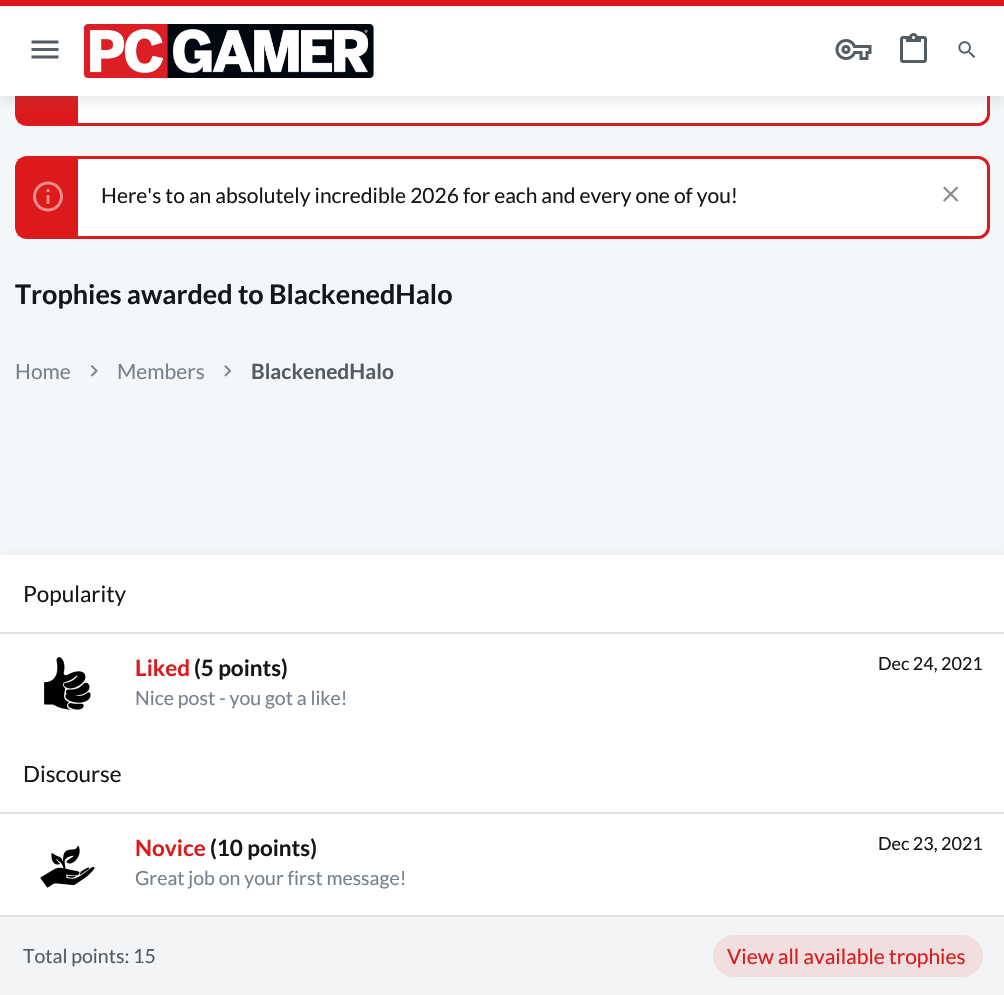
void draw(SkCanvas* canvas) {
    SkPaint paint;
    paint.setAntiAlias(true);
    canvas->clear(0xFFF4F7F9);
    paint.setColor(0xFFFFFFFF);
    canvas->drawRoundRect(SkRect::MakeXYWH(16.5f, 4.5f, 972, 120), 10.5f, 10.5f, paint);
    paint.setStyle(SkPaint::kStroke_Style);
    paint.setStrokeWidth(3);
    paint.setColor(0xFFDC191B);
    canvas->drawRoundRect(SkRect::MakeXYWH(16.5f, 4.5f, 972, 120), 10.5f, 10.5f, paint);
    paint.setStyle(SkPaint::kFill_Style);
    canvas->drawRect(SkRect::MakeXYWH(18, 96, 60, 27), paint);
    paint.setColor(0x146B7780);
    paint.setMaskFilter(SkMaskFilter::MakeBlur(kNormal_SkBlurStyle, 6));
    canvas->drawRect(SkRect::MakeXYWH(3, 0, 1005, 96), paint);
    paint.setMaskFilter(nullptr);
    paint.setColor(0x1F6B7780);
    paint.setMaskFilter(SkMaskFilter::MakeBlur(kNormal_SkBlurStyle, 6));
    canvas->drawRect(SkRect::MakeXYWH(0, 6, 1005, 96), paint);
    paint.setMaskFilter(nullptr);
    paint.setColor(0xFFFFFFFF);
    canvas->drawRect(SkRect::MakeXYWH(0, 6, 1004, 90), paint);
    paint.setColor(0xFFDC191B);
    canvas->drawRect(SkRect::MakeXYWH(0, 0, 1004, 6), paint);
    canvas->drawImageRect(SkImages::DeferredFromEncodedData(SkData::MakeFromFileName("img1.png")), SkRect::MakeXYWH(31, 40, 28, 19), SkSamplingOptions());
    canvas->drawImageRect(SkImages::DeferredFromEncodedData(SkData::MakeFromFileName("img2.png")), SkRect::MakeXYWH(84, 24, 290, 54), SkSamplingOptions());
    canvas->drawImageRect(SkImages::DeferredFromEncodedData(SkData::MakeFromFileName("img3.png")), SkRect::MakeXYWH(835, 39, 37, 21), SkSamplingOptions());
    canvas->drawImageRect(SkImages::DeferredFromEncodedData(SkData::MakeFromFileName("img4.png")), SkRect::MakeXYWH(900, 33, 27, 30), SkSamplingOptions());
    canvas->drawImageRect(SkImages::DeferredFromEncodedData(SkData::MakeFromFileName("img5.png")), SkRect::MakeXYWH(958, 41, 18, 17), SkSamplingOptions());
    paint.setColor(0xFFFFFFFF);
    canvas->drawRoundRect(SkRect::MakeXYWH(16.5f, 157.5f, 972, 80), 10.5f, 10.5f, paint);
    paint.setStyle(SkPaint::kStroke_Style);
    paint.setColor(0xFFDC191B);
    canvas->drawRoundRect(SkRect::MakeXYWH(16.5f, 157.5f, 972, 80), 10.5f, 10.5f, paint);
    paint.setStyle(SkPaint::kFill_Style);
    canvas->drawRect(SkRect::MakeXYWH(18, 159, 60, 77), paint);
    canvas->drawImageRect(SkImages::DeferredFromEncodedData(SkData::MakeFromFileName("img6.png")), SkRect::MakeXYWH(33, 181, 30, 31), SkSamplingOptions());
    SkFont font1(fontMgr->matchFamilyStyle("Lato", SkFontStyle::Normal()), 21);
    font1.setSubpixel(true);
    paint.setColor(0xFF141618);
    canvas->drawString("Here's to an absolutely incredible 2026 for each and every one of you!", 101, 203, font1, paint);
    canvas->drawImageRect(SkImages::DeferredFromEncodedData(SkData::MakeFromFileName("img7.png")), SkRect::MakeXYWH(943, 186, 16, 16), SkSamplingOptions());
    SkFont font2(fontMgr->matchFamilyStyle("Lato", SkFontStyle::Bold()), 27);
    font2.setSubpixel(true);
    canvas->drawString("Trophies awarded to BlackenedHalo", 15, 304, font2, paint);
    paint.setColor(0xFF76818D);
    canvas->drawString("Home", 15, 379, font1, paint);
    canvas->drawImageRect(SkImages::DeferredFromEncodedData(SkData::MakeFromFileName("img8.png")), SkRect::MakeXYWH(90, 365, 8, 12), SkSamplingOptions());
    canvas->drawString("Members", 117, 379, font1, paint);
    canvas->drawImageRect(SkImages::DeferredFromEncodedData(SkData::MakeFromFileName("img9.png")), SkRect::MakeXYWH(224, 365, 8, 12), SkSamplingOptions());
    SkFont font3(fontMgr->matchFamilyStyle("Lato", SkFontStyle::Bold()), 21);
    font3.setSubpixel(true);
    paint.setColor(0xFF535B63);
    canvas->drawString("BlackenedHalo", 251, 379, font3, paint);
    paint.setColor(0x146B7780);
    paint.setMaskFilter(SkMaskFilter::MakeBlur(kNormal_SkBlurStyle, 6));
    canvas->drawRect(SkRect::MakeXYWH(3, 555, 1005, 440), paint);
    paint.setMaskFilter(nullptr);
    paint.setColor(0xFFFFFFFF);
    canvas->drawRect(SkRect::MakeXYWH(0, 555, 1004, 360), paint);
    paint.setColor(0xFFE0E0E0);
    canvas->drawRect(SkRect::MakeXYWH(0, 632, 1004, 2), paint);
    SkFont font4(fontMgr->matchFamilyStyle("Lato", SkFontStyle::Normal()), 22.5f);
    font4.setSubpixel(true);
    paint.setColor(0xFF141618);
    canvas->drawString("Popularity", 23, 602, font4, paint);
    canvas->drawImageRect(SkImages::DeferredFromEncodedData(SkData::MakeFromFileName("img10.png")), SkRect::MakeXYWH(44, 657, 47, 53), SkSamplingOptions());
    SkFont font5(fontMgr->matchFamilyStyle("Lato", SkFontStyle::Bold()), 22.5f);
    font5.setSubpixel(true);
    paint.setColor(0xFFDC191B);
    canvas->drawString("Liked", 135, 676, font5, paint);
    paint.setColor(0xFF141618);
    canvas->drawString("(5 points)", 194, 676, font5, paint);
    SkFont font6(fontMgr->matchFamilyStyle("Lato", SkFontStyle::Normal()), 18);
    font6.setSubpixel(true);
    canvas->drawString("Dec 24, 2021", 878, 670, font6, paint);
    SkFont font7(fontMgr->matchFamilyStyle("Lato", SkFontStyle::Normal()), 19.5f);
    font7.setSubpixel(true);
    paint.setColor(0xFF76818D);
    canvas->drawString("Nice post - you got a like!", 135, 705, font7, paint);
    paint.setColor(0xFFE0E0E0);
    canvas->drawRect(SkRect::MakeXYWH(0, 812, 1004, 2), paint);
    paint.setColor(0xFF141618);
    canvas->drawString("Discourse", 23, 782, font4, paint);
    canvas->drawImageRect(SkImages::DeferredFromEncodedData(SkData::MakeFromFileName("img11.png")), SkRect::MakeXYWH(40, 845, 55, 43), SkSamplingOptions());
    paint.setColor(0xFFDC191B);
    canvas->drawString("Novice", 135, 856, font5, paint);
    paint.setColor(0xFF141618);
    canvas->drawString("(10 points)", 210, 856, font5, paint);
    canvas->drawString("Dec 23, 2021", 878, 850, font6, paint);
    paint.setColor(0xFF76818D);
    canvas->drawString("Great job on your first message!", 135, 885, font7, paint);
    paint.setColor(0xFFF3F4F5);
    canvas->drawRect(SkRect::MakeXYWH(0, 917, 1004, 78), paint);
    paint.setColor(0xFFE0E0E0);
    canvas->drawRect(SkRect::MakeXYWH(0, 915, 1004, 2), paint);
    paint.setColor(0xFF535B63);
    canvas->drawString("Total points: 15", 23, 963, font7, paint);
    paint.setColor(0xFFF1DEDF);
    canvas->drawRoundRect(SkRect::MakeXYWH(713, 935, 270, 42), 21, 21, paint);
    paint.setColor(0xFFDC191B);
    canvas->drawString("View all available trophies", 727, 964, font1, paint);
}
